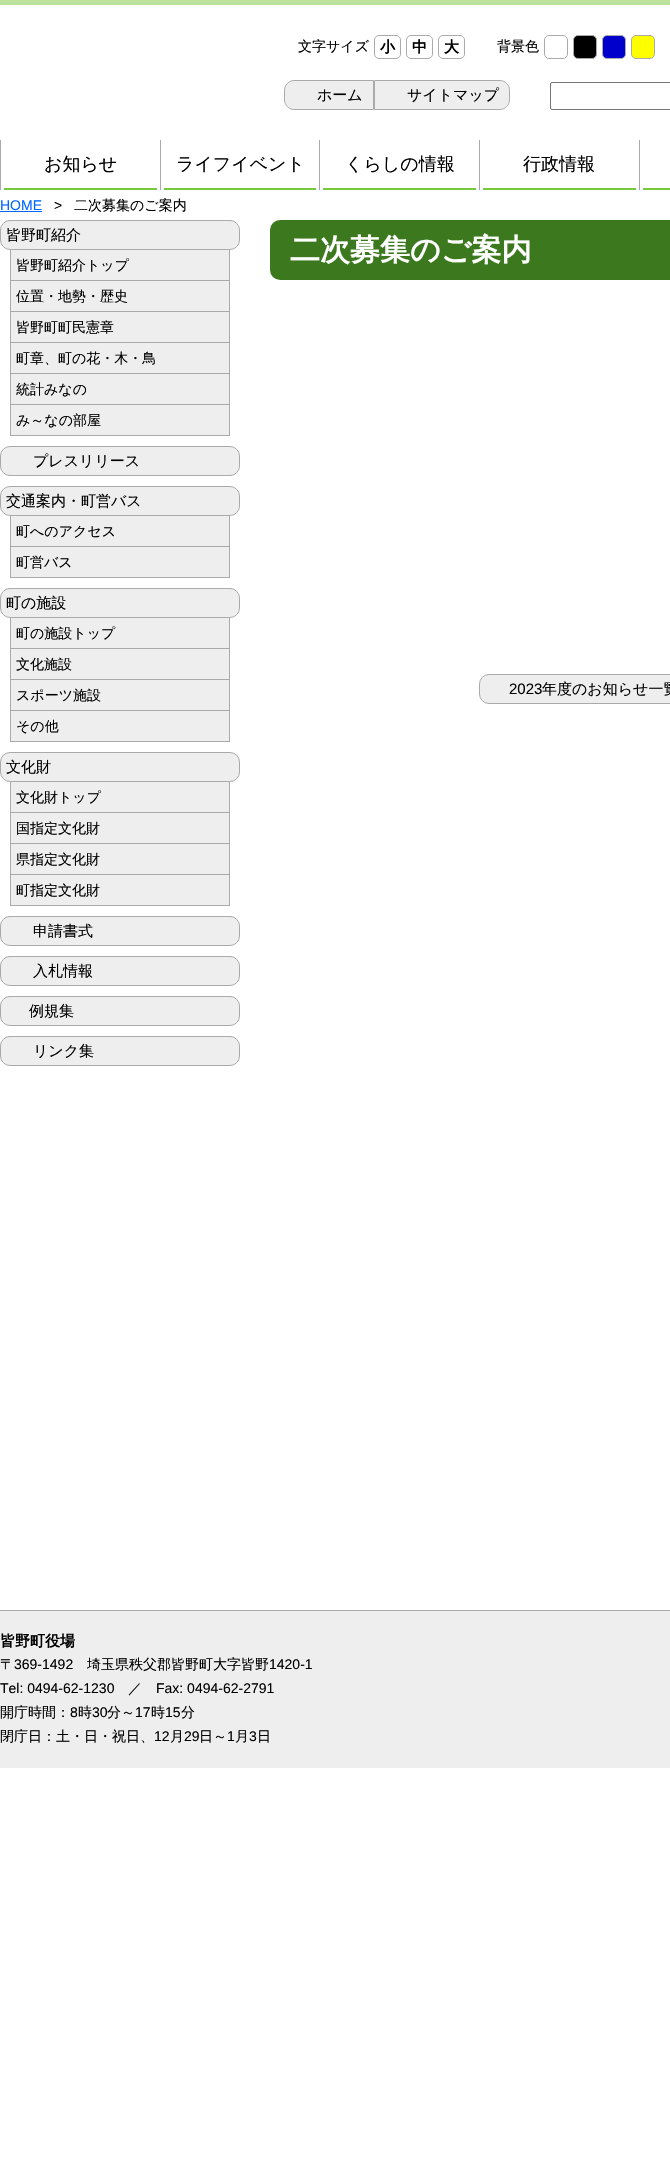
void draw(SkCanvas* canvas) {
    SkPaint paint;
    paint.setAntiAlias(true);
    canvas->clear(0xFFFFFFFF);
    paint.setColor(0xFFBBE39D);
    canvas->drawRect(SkRect::MakeXYWH(0, 0, 670, 5), paint);
    SkFont font1(fontMgr->matchFamilyStyle("WenQuanYi Zen Hei", SkFontStyle(500, SkFontStyle::kNormal_Width, SkFontStyle::kUpright_Slant)), 14);
    font1.setSubpixel(true);
    paint.setColor(0xFF000000);
    canvas->drawString("文字サイズ", 298, 51, font1, paint);
    paint.setStyle(SkPaint::kStroke_Style);
    paint.setStrokeWidth(1);
    paint.setColor(0xFFAAAAAA);
    canvas->drawRoundRect(SkRect::MakeXYWH(374.5f, 35.5f, 26, 23), 4.5f, 4.5f, paint);
    SkFont font2(fontMgr->matchFamilyStyle("WenQuanYi Zen Hei", SkFontStyle::Bold()), 15);
    font2.setSubpixel(true);
    paint.setStyle(SkPaint::kFill_Style);
    paint.setColor(0xFF000000);
    canvas->drawString("小", 380, 52, font2, paint);
    paint.setStyle(SkPaint::kStroke_Style);
    paint.setColor(0xFFAAAAAA);
    canvas->drawRoundRect(SkRect::MakeXYWH(406.5f, 35.5f, 26, 23), 4.5f, 4.5f, paint);
    paint.setStyle(SkPaint::kFill_Style);
    paint.setColor(0xFF000000);
    canvas->drawString("中", 412, 52, font2, paint);
    paint.setStyle(SkPaint::kStroke_Style);
    paint.setColor(0xFFAAAAAA);
    canvas->drawRoundRect(SkRect::MakeXYWH(438.5f, 35.5f, 26, 23), 4.5f, 4.5f, paint);
    paint.setStyle(SkPaint::kFill_Style);
    paint.setColor(0xFF000000);
    canvas->drawString("大", 444, 52, font2, paint);
    canvas->drawString("背景色", 497, 51, font1, paint);
    paint.setStyle(SkPaint::kStroke_Style);
    paint.setColor(0xFFAAAAAA);
    canvas->drawRoundRect(SkRect::MakeXYWH(544.5f, 35.5f, 23, 23), 4.5f, 4.5f, paint);
    paint.setStyle(SkPaint::kFill_Style);
    paint.setColor(0xFF000000);
    canvas->drawRoundRect(SkRect::MakeXYWH(573.5f, 35.5f, 23, 23), 4.5f, 4.5f, paint);
    paint.setStyle(SkPaint::kStroke_Style);
    paint.setColor(0xFFAAAAAA);
    canvas->drawRoundRect(SkRect::MakeXYWH(573.5f, 35.5f, 23, 23), 4.5f, 4.5f, paint);
    paint.setStyle(SkPaint::kFill_Style);
    paint.setColor(0xFF0000CC);
    canvas->drawRoundRect(SkRect::MakeXYWH(602.5f, 35.5f, 23, 23), 4.5f, 4.5f, paint);
    paint.setStyle(SkPaint::kStroke_Style);
    paint.setColor(0xFFAAAAAA);
    canvas->drawRoundRect(SkRect::MakeXYWH(602.5f, 35.5f, 23, 23), 4.5f, 4.5f, paint);
    paint.setStyle(SkPaint::kFill_Style);
    paint.setColor(0xFFFFFF00);
    canvas->drawRoundRect(SkRect::MakeXYWH(631.5f, 35.5f, 23, 23), 4.5f, 4.5f, paint);
    paint.setStyle(SkPaint::kStroke_Style);
    paint.setColor(0xFFAAAAAA);
    canvas->drawRoundRect(SkRect::MakeXYWH(631.5f, 35.5f, 23, 23), 4.5f, 4.5f, paint);
    paint.setStyle(SkPaint::kFill_Style);
    paint.setColor(0xFFEEEEEE);
    canvas->drawPath(SkPathBuilder().moveTo(294, 80.5f).lineTo(373.5f, 80.5f).lineTo(373.5f, 109.5f).lineTo(294, 109.5f).cubicTo(289, 109.5f, 284.5f, 105, 284.5f, 100).lineTo(284.5f, 90).cubicTo(284.5f, 85, 289, 80.5f, 294, 80.5f).close().detach(), paint);
    paint.setStyle(SkPaint::kStroke_Style);
    paint.setColor(0xFFAAAAAA);
    canvas->drawPath(SkPathBuilder().moveTo(294, 80.5f).lineTo(373.5f, 80.5f).lineTo(373.5f, 109.5f).lineTo(294, 109.5f).cubicTo(289, 109.5f, 284.5f, 105, 284.5f, 100).lineTo(284.5f, 90).cubicTo(284.5f, 85, 289, 80.5f, 294, 80.5f).close().detach(), paint);
    SkFont font3(fontMgr->matchFamilyStyle("WenQuanYi Zen Hei", SkFontStyle(500, SkFontStyle::kNormal_Width, SkFontStyle::kUpright_Slant)), 15);
    font3.setSubpixel(true);
    paint.setStyle(SkPaint::kFill_Style);
    paint.setColor(0xFF000000);
    canvas->drawString("ホーム", 317, 100, font3, paint);
    paint.setColor(0xFFEEEEEE);
    canvas->drawPath(SkPathBuilder().moveTo(374.5f, 80.5f).lineTo(500, 80.5f).cubicTo(505, 80.5f, 509.5f, 85, 509.5f, 90).lineTo(509.5f, 100).cubicTo(509.5f, 105, 505, 109.5f, 500, 109.5f).lineTo(374.5f, 109.5f).close().detach(), paint);
    paint.setStyle(SkPaint::kStroke_Style);
    paint.setColor(0xFFAAAAAA);
    canvas->drawPath(SkPathBuilder().moveTo(374.5f, 80.5f).lineTo(500, 80.5f).cubicTo(505, 80.5f, 509.5f, 85, 509.5f, 90).lineTo(509.5f, 100).cubicTo(509.5f, 105, 505, 109.5f, 500, 109.5f).lineTo(374.5f, 109.5f).close().detach(), paint);
    paint.setStyle(SkPaint::kFill_Style);
    paint.setColor(0xFF000000);
    canvas->drawString("サイトマップ", 407, 100, font3, paint);
    paint.setStyle(SkPaint::kStroke_Style);
    paint.setColor(0xFF767676);
    canvas->drawRoundRect(SkRect::MakeXYWH(550.5f, 82.5f, 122, 27), 1.5f, 1.5f, paint);
    paint.setStyle(SkPaint::kFill_Style);
    paint.setColor(0xFFAAAAAA);
    canvas->drawRect(SkRect::MakeXYWH(0, 140, 1, 50), paint);
    canvas->drawRect(SkRect::MakeXYWH(160, 140, 1, 50), paint);
    paint.setColor(0xFF78C83C);
    canvas->drawRect(SkRect::MakeXYWH(4, 188, 153, 2), paint);
    SkFont font4(fontMgr->matchFamilyStyle("WenQuanYi Zen Hei", SkFontStyle(500, SkFontStyle::kNormal_Width, SkFontStyle::kUpright_Slant)), 18);
    font4.setSubpixel(true);
    paint.setColor(0xFF000000);
    canvas->drawString("お知らせ", 44, 170, font4, paint);
    paint.setColor(0xFFAAAAAA);
    canvas->drawRect(SkRect::MakeXYWH(319, 140, 1, 50), paint);
    paint.setColor(0xFF78C83C);
    canvas->drawRect(SkRect::MakeXYWH(164, 188, 152, 2), paint);
    paint.setColor(0xFF000000);
    canvas->drawString("ライフイベント", 176, 170, font4, paint);
    paint.setColor(0xFFAAAAAA);
    canvas->drawRect(SkRect::MakeXYWH(479, 140, 1, 50), paint);
    paint.setColor(0xFF78C83C);
    canvas->drawRect(SkRect::MakeXYWH(323, 188, 153, 2), paint);
    paint.setColor(0xFF000000);
    canvas->drawString("くらしの情報", 345, 170, font4, paint);
    paint.setColor(0xFFAAAAAA);
    canvas->drawRect(SkRect::MakeXYWH(639, 140, 1, 50), paint);
    paint.setColor(0xFF78C83C);
    canvas->drawRect(SkRect::MakeXYWH(483, 188, 153, 2), paint);
    paint.setColor(0xFF000000);
    canvas->drawString("行政情報", 523, 170, font4, paint);
    paint.setColor(0xFF78C83C);
    canvas->drawRect(SkRect::MakeXYWH(643, 188, 27, 2), paint);
    SkFont font5(fontMgr->matchFamilyStyle("Liberation Sans", SkFontStyle::Normal()), 14);
    font5.setSubpixel(true);
    paint.setColor(0xFF0066FF);
    canvas->drawString("HOME", 0, 210, font5, paint);
    canvas->drawRect(SkRect::MakeXYWH(0, 211, 42, 1), paint);
    paint.setColor(0xFF000000);
    canvas->drawString(">", 54, 210, font5, paint);
    canvas->drawString("二次募集のご案内", 74, 210, font1, paint);
    paint.setColor(0xFFEEEEEE);
    canvas->drawRoundRect(SkRect::MakeXYWH(0.5f, 220.5f, 239, 29), 9.5f, 9.5f, paint);
    paint.setStyle(SkPaint::kStroke_Style);
    paint.setColor(0xFFAAAAAA);
    canvas->drawRoundRect(SkRect::MakeXYWH(0.5f, 220.5f, 239, 29), 9.5f, 9.5f, paint);
    paint.setStyle(SkPaint::kFill_Style);
    paint.setColor(0xFF000000);
    canvas->drawString("皆野町紹介", 6, 240, font3, paint);
    paint.setColor(0xFFEEEEEE);
    canvas->drawRect(SkRect::MakeXYWH(11, 250, 218, 30), paint);
    paint.setColor(0xFFAAAAAA);
    canvas->drawRect(SkRect::MakeXYWH(229, 250, 1, 186), paint);
    canvas->drawRect(SkRect::MakeXYWH(10, 280, 220, 1), paint);
    canvas->drawRect(SkRect::MakeXYWH(10, 250, 1, 31), paint);
    paint.setColor(0xFF000000);
    canvas->drawString("皆野町紹介トップ", 16, 270, font1, paint);
    paint.setColor(0xFFEEEEEE);
    canvas->drawRect(SkRect::MakeXYWH(11, 281, 218, 30), paint);
    paint.setColor(0xFFAAAAAA);
    canvas->drawRect(SkRect::MakeXYWH(10, 311, 220, 1), paint);
    canvas->drawRect(SkRect::MakeXYWH(10, 281, 1, 31), paint);
    paint.setColor(0xFF000000);
    canvas->drawString("位置・地勢・歴史", 16, 301, font1, paint);
    paint.setColor(0xFFEEEEEE);
    canvas->drawRect(SkRect::MakeXYWH(11, 312, 218, 30), paint);
    paint.setColor(0xFFAAAAAA);
    canvas->drawRect(SkRect::MakeXYWH(10, 342, 220, 1), paint);
    canvas->drawRect(SkRect::MakeXYWH(10, 312, 1, 31), paint);
    paint.setColor(0xFF000000);
    canvas->drawString("皆野町町民憲章", 16, 332, font1, paint);
    paint.setColor(0xFFEEEEEE);
    canvas->drawRect(SkRect::MakeXYWH(11, 343, 218, 30), paint);
    paint.setColor(0xFFAAAAAA);
    canvas->drawRect(SkRect::MakeXYWH(10, 373, 220, 1), paint);
    canvas->drawRect(SkRect::MakeXYWH(10, 343, 1, 31), paint);
    paint.setColor(0xFF000000);
    canvas->drawString("町章、町の花・木・鳥", 16, 363, font1, paint);
    paint.setColor(0xFFEEEEEE);
    canvas->drawRect(SkRect::MakeXYWH(11, 374, 218, 30), paint);
    paint.setColor(0xFFAAAAAA);
    canvas->drawRect(SkRect::MakeXYWH(10, 404, 220, 1), paint);
    canvas->drawRect(SkRect::MakeXYWH(10, 374, 1, 31), paint);
    paint.setColor(0xFF000000);
    canvas->drawString("統計みなの", 16, 394, font1, paint);
    paint.setColor(0xFFEEEEEE);
    canvas->drawRect(SkRect::MakeXYWH(11, 405, 218, 30), paint);
    paint.setColor(0xFFAAAAAA);
    canvas->drawRect(SkRect::MakeXYWH(10, 435, 220, 1), paint);
    canvas->drawRect(SkRect::MakeXYWH(10, 405, 1, 31), paint);
    paint.setColor(0xFF000000);
    canvas->drawString("み～なの部屋", 16, 425, font1, paint);
    paint.setColor(0xFFEEEEEE);
    canvas->drawRoundRect(SkRect::MakeXYWH(0.5f, 446.5f, 239, 29), 9.5f, 9.5f, paint);
    paint.setStyle(SkPaint::kStroke_Style);
    paint.setColor(0xFFAAAAAA);
    canvas->drawRoundRect(SkRect::MakeXYWH(0.5f, 446.5f, 239, 29), 9.5f, 9.5f, paint);
    paint.setStyle(SkPaint::kFill_Style);
    paint.setColor(0xFF000000);
    canvas->drawString("プレスリリース", 33, 466, font3, paint);
    paint.setColor(0xFFEEEEEE);
    canvas->drawRoundRect(SkRect::MakeXYWH(0.5f, 486.5f, 239, 29), 9.5f, 9.5f, paint);
    paint.setStyle(SkPaint::kStroke_Style);
    paint.setColor(0xFFAAAAAA);
    canvas->drawRoundRect(SkRect::MakeXYWH(0.5f, 486.5f, 239, 29), 9.5f, 9.5f, paint);
    paint.setStyle(SkPaint::kFill_Style);
    paint.setColor(0xFF000000);
    canvas->drawString("交通案内・町営バス", 6, 506, font3, paint);
    paint.setColor(0xFFEEEEEE);
    canvas->drawRect(SkRect::MakeXYWH(11, 516, 218, 30), paint);
    paint.setColor(0xFFAAAAAA);
    canvas->drawRect(SkRect::MakeXYWH(229, 516, 1, 62), paint);
    canvas->drawRect(SkRect::MakeXYWH(10, 546, 220, 1), paint);
    canvas->drawRect(SkRect::MakeXYWH(10, 516, 1, 31), paint);
    paint.setColor(0xFF000000);
    canvas->drawString("町へのアクセス", 16, 536, font1, paint);
    paint.setColor(0xFFEEEEEE);
    canvas->drawRect(SkRect::MakeXYWH(11, 547, 218, 30), paint);
    paint.setColor(0xFFAAAAAA);
    canvas->drawRect(SkRect::MakeXYWH(10, 577, 220, 1), paint);
    canvas->drawRect(SkRect::MakeXYWH(10, 547, 1, 31), paint);
    paint.setColor(0xFF000000);
    canvas->drawString("町営バス", 16, 567, font1, paint);
    paint.setColor(0xFFEEEEEE);
    canvas->drawRoundRect(SkRect::MakeXYWH(0.5f, 588.5f, 239, 29), 9.5f, 9.5f, paint);
    paint.setStyle(SkPaint::kStroke_Style);
    paint.setColor(0xFFAAAAAA);
    canvas->drawRoundRect(SkRect::MakeXYWH(0.5f, 588.5f, 239, 29), 9.5f, 9.5f, paint);
    paint.setStyle(SkPaint::kFill_Style);
    paint.setColor(0xFF000000);
    canvas->drawString("町の施設", 6, 608, font3, paint);
    paint.setColor(0xFFEEEEEE);
    canvas->drawRect(SkRect::MakeXYWH(11, 618, 218, 30), paint);
    paint.setColor(0xFFAAAAAA);
    canvas->drawRect(SkRect::MakeXYWH(229, 618, 1, 124), paint);
    canvas->drawRect(SkRect::MakeXYWH(10, 648, 220, 1), paint);
    canvas->drawRect(SkRect::MakeXYWH(10, 618, 1, 31), paint);
    paint.setColor(0xFF000000);
    canvas->drawString("町の施設トップ", 16, 638, font1, paint);
    paint.setColor(0xFFEEEEEE);
    canvas->drawRect(SkRect::MakeXYWH(11, 649, 218, 30), paint);
    paint.setColor(0xFFAAAAAA);
    canvas->drawRect(SkRect::MakeXYWH(10, 679, 220, 1), paint);
    canvas->drawRect(SkRect::MakeXYWH(10, 649, 1, 31), paint);
    paint.setColor(0xFF000000);
    canvas->drawString("文化施設", 16, 669, font1, paint);
    paint.setColor(0xFFEEEEEE);
    canvas->drawRect(SkRect::MakeXYWH(11, 680, 218, 30), paint);
    paint.setColor(0xFFAAAAAA);
    canvas->drawRect(SkRect::MakeXYWH(10, 710, 220, 1), paint);
    canvas->drawRect(SkRect::MakeXYWH(10, 680, 1, 31), paint);
    paint.setColor(0xFF000000);
    canvas->drawString("スポーツ施設", 16, 700, font1, paint);
    paint.setColor(0xFFEEEEEE);
    canvas->drawRect(SkRect::MakeXYWH(11, 711, 218, 30), paint);
    paint.setColor(0xFFAAAAAA);
    canvas->drawRect(SkRect::MakeXYWH(10, 741, 220, 1), paint);
    canvas->drawRect(SkRect::MakeXYWH(10, 711, 1, 31), paint);
    paint.setColor(0xFF000000);
    canvas->drawString("その他", 16, 731, font1, paint);
    paint.setColor(0xFFEEEEEE);
    canvas->drawRoundRect(SkRect::MakeXYWH(0.5f, 752.5f, 239, 29), 9.5f, 9.5f, paint);
    paint.setStyle(SkPaint::kStroke_Style);
    paint.setColor(0xFFAAAAAA);
    canvas->drawRoundRect(SkRect::MakeXYWH(0.5f, 752.5f, 239, 29), 9.5f, 9.5f, paint);
    paint.setStyle(SkPaint::kFill_Style);
    paint.setColor(0xFF000000);
    canvas->drawString("文化財", 6, 772, font3, paint);
    paint.setColor(0xFFEEEEEE);
    canvas->drawRect(SkRect::MakeXYWH(11, 782, 218, 30), paint);
    paint.setColor(0xFFAAAAAA);
    canvas->drawRect(SkRect::MakeXYWH(229, 782, 1, 124), paint);
    canvas->drawRect(SkRect::MakeXYWH(10, 812, 220, 1), paint);
    canvas->drawRect(SkRect::MakeXYWH(10, 782, 1, 31), paint);
    paint.setColor(0xFF000000);
    canvas->drawString("文化財トップ", 16, 802, font1, paint);
    paint.setColor(0xFFEEEEEE);
    canvas->drawRect(SkRect::MakeXYWH(11, 813, 218, 30), paint);
    paint.setColor(0xFFAAAAAA);
    canvas->drawRect(SkRect::MakeXYWH(10, 843, 220, 1), paint);
    canvas->drawRect(SkRect::MakeXYWH(10, 813, 1, 31), paint);
    paint.setColor(0xFF000000);
    canvas->drawString("国指定文化財", 16, 833, font1, paint);
    paint.setColor(0xFFEEEEEE);
    canvas->drawRect(SkRect::MakeXYWH(11, 844, 218, 30), paint);
    paint.setColor(0xFFAAAAAA);
    canvas->drawRect(SkRect::MakeXYWH(10, 874, 220, 1), paint);
    canvas->drawRect(SkRect::MakeXYWH(10, 844, 1, 31), paint);
    paint.setColor(0xFF000000);
    canvas->drawString("県指定文化財", 16, 864, font1, paint);
    paint.setColor(0xFFEEEEEE);
    canvas->drawRect(SkRect::MakeXYWH(11, 875, 218, 30), paint);
    paint.setColor(0xFFAAAAAA);
    canvas->drawRect(SkRect::MakeXYWH(10, 905, 220, 1), paint);
    canvas->drawRect(SkRect::MakeXYWH(10, 875, 1, 31), paint);
    paint.setColor(0xFF000000);
    canvas->drawString("町指定文化財", 16, 895, font1, paint);
    paint.setColor(0xFFEEEEEE);
    canvas->drawRoundRect(SkRect::MakeXYWH(0.5f, 916.5f, 239, 29), 9.5f, 9.5f, paint);
    paint.setStyle(SkPaint::kStroke_Style);
    paint.setColor(0xFFAAAAAA);
    canvas->drawRoundRect(SkRect::MakeXYWH(0.5f, 916.5f, 239, 29), 9.5f, 9.5f, paint);
    paint.setStyle(SkPaint::kFill_Style);
    paint.setColor(0xFF000000);
    canvas->drawString("申請書式", 33, 936, font3, paint);
    paint.setColor(0xFFEEEEEE);
    canvas->drawRoundRect(SkRect::MakeXYWH(0.5f, 956.5f, 239, 29), 9.5f, 9.5f, paint);
    paint.setStyle(SkPaint::kStroke_Style);
    paint.setColor(0xFFAAAAAA);
    canvas->drawRoundRect(SkRect::MakeXYWH(0.5f, 956.5f, 239, 29), 9.5f, 9.5f, paint);
    paint.setStyle(SkPaint::kFill_Style);
    paint.setColor(0xFF000000);
    canvas->drawString("入札情報", 33, 976, font3, paint);
    paint.setColor(0xFFEEEEEE);
    canvas->drawRoundRect(SkRect::MakeXYWH(0.5f, 996.5f, 239, 29), 9.5f, 9.5f, paint);
    paint.setStyle(SkPaint::kStroke_Style);
    paint.setColor(0xFFAAAAAA);
    canvas->drawRoundRect(SkRect::MakeXYWH(0.5f, 996.5f, 239, 29), 9.5f, 9.5f, paint);
    paint.setStyle(SkPaint::kFill_Style);
    paint.setColor(0xFF000000);
    canvas->drawString("例規集", 29, 1016, font3, paint);
    paint.setColor(0xFFEEEEEE);
    canvas->drawRoundRect(SkRect::MakeXYWH(0.5f, 1036.5f, 239, 29), 9.5f, 9.5f, paint);
    paint.setStyle(SkPaint::kStroke_Style);
    paint.setColor(0xFFAAAAAA);
    canvas->drawRoundRect(SkRect::MakeXYWH(0.5f, 1036.5f, 239, 29), 9.5f, 9.5f, paint);
    paint.setStyle(SkPaint::kFill_Style);
    paint.setColor(0xFF000000);
    canvas->drawString("リンク集", 33, 1056, font3, paint);
    paint.setColor(0xFF3C781E);
    canvas->drawRoundRect(SkRect::MakeXYWH(270, 220, 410, 60), 10, 10, paint);
    SkFont font6(fontMgr->matchFamilyStyle("WenQuanYi Zen Hei", SkFontStyle::Bold()), 30);
    font6.setSubpixel(true);
    paint.setColor(0xFFFFFFFF);
    canvas->drawString("二次募集のご案内", 290, 260, font6, paint);
    paint.setColor(0xFFEEEEEE);
    canvas->drawRoundRect(SkRect::MakeXYWH(479.5f, 674.5f, 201, 29), 9.5f, 9.5f, paint);
    paint.setStyle(SkPaint::kStroke_Style);
    paint.setColor(0xFFAAAAAA);
    canvas->drawRoundRect(SkRect::MakeXYWH(479.5f, 674.5f, 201, 29), 9.5f, 9.5f, paint);
    SkFont font7(fontMgr->matchFamilyStyle("Liberation Sans", SkFontStyle::Normal()), 15);
    font7.setSubpixel(true);
    paint.setStyle(SkPaint::kFill_Style);
    paint.setColor(0xFF000000);
    canvas->drawString("2023", 509, 694, font7, paint);
    canvas->drawString("年度のお知らせ一覧", 542, 694, font3, paint);
    paint.setColor(0xFFEEEEEE);
    canvas->drawRect(SkRect::MakeXYWH(0, 1611, 670, 157), paint);
    paint.setColor(0xFFAAAAAA);
    canvas->drawRect(SkRect::MakeXYWH(0, 1610, 670, 1), paint);
    paint.setColor(0xFF000000);
    canvas->drawString("皆野町役場", 0, 1646, font2, paint);
    canvas->drawString("〒", 0, 1669, font1, paint);
    canvas->drawString("369-1492", 14, 1669, font5, paint);
    canvas->drawString("埼玉県秩父郡皆野町大字皆野", 87, 1669, font1, paint);
    canvas->drawString("1420-1", 269, 1669, font5, paint);
    canvas->drawString("Tel: 0494-62-1230", 0, 1693, font5, paint);
    canvas->drawString("／", 128, 1693, font1, paint);
    canvas->drawString("Fax: 0494-62-2791", 156, 1693, font5, paint);
    canvas->drawString("開庁時間：", 0, 1717, font1, paint);
    canvas->drawString("8", 70, 1717, font5, paint);
    canvas->drawString("時", 78, 1717, font1, paint);
    canvas->drawString("30", 92, 1717, font5, paint);
    canvas->drawString("分～", 107, 1717, font1, paint);
    canvas->drawString("17", 135, 1717, font5, paint);
    canvas->drawString("時", 151, 1717, font1, paint);
    canvas->drawString("15", 165, 1717, font5, paint);
    canvas->drawString("分", 181, 1717, font1, paint);
    canvas->drawString("閉庁日：土・日・祝日、", 0, 1741, font1, paint);
    canvas->drawString("12", 154, 1741, font5, paint);
    canvas->drawString("月", 170, 1741, font1, paint);
    canvas->drawString("29", 184, 1741, font5, paint);
    canvas->drawString("日～", 199, 1741, font1, paint);
    canvas->drawString("1", 227, 1741, font5, paint);
    canvas->drawString("月", 235, 1741, font1, paint);
    canvas->drawString("3", 249, 1741, font5, paint);
    canvas->drawString("日", 257, 1741, font1, paint);
}
